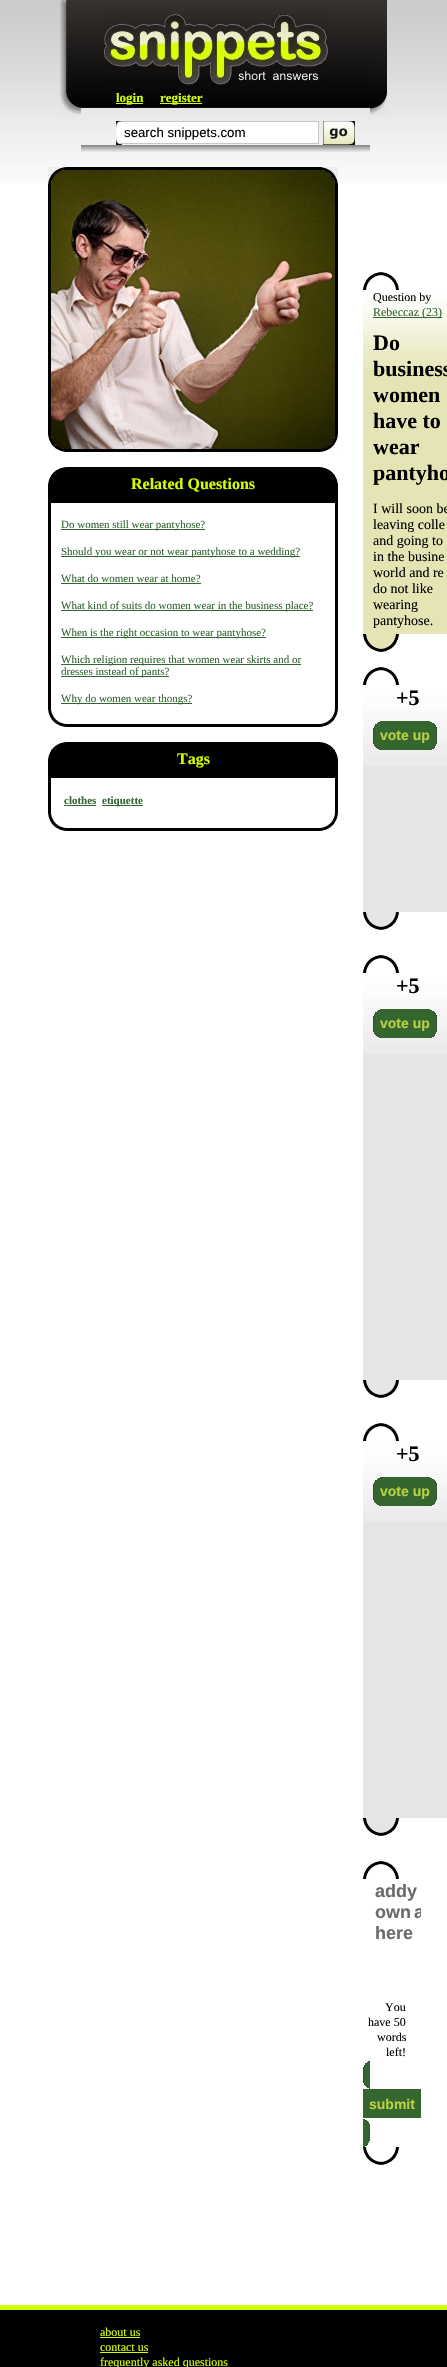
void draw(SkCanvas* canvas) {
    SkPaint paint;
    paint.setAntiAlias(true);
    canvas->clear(0xFFFFFFFF);
    canvas->drawImageRect(SkImages::DeferredFromEncodedData(SkData::MakeFromFileName("img1.png")), SkRect::MakeXYWH(0, 0, 447, 183), SkSamplingOptions());
    canvas->drawImageRect(SkImages::DeferredFromEncodedData(SkData::MakeFromFileName("img2.png")), SkRect::MakeXYWH(60, 0, 21, 115), SkSamplingOptions());
    canvas->drawImageRect(SkImages::DeferredFromEncodedData(SkData::MakeFromFileName("img3.png")), SkRect::MakeXYWH(81, 0, 289, 108), SkSamplingOptions());
    canvas->drawImageRect(SkImages::DeferredFromEncodedData(SkData::MakeFromFileName("img4.png")), SkRect::MakeXYWH(104, 14, 224, 71), SkSamplingOptions());
    paint.setColor(0xFFD2FF00);
    canvas->drawRect(SkRect::MakeXYWH(116, 103, 27, 1), paint);
    SkFont font1(fontMgr->matchFamilyStyle("Liberation Serif", SkFontStyle::Bold()), 13);
    font1.setSubpixel(true);
    canvas->drawString("login", 116, 102, font1, paint);
    canvas->drawRect(SkRect::MakeXYWH(160, 103, 42, 1), paint);
    canvas->drawString("register", 160, 102, font1, paint);
    canvas->drawImageRect(SkImages::DeferredFromEncodedData(SkData::MakeFromFileName("img5.png")), SkRect::MakeXYWH(116, 121, 6, 24), SkSamplingOptions());
    paint.setColor(0xFFFFFFFF);
    canvas->drawRect(SkRect::MakeXYWH(122, 122, 196, 21), paint);
    paint.setColor(0xFFC7C7C7);
    canvas->drawRect(SkRect::MakeXYWH(122, 121, 197, 1), paint);
    canvas->drawRect(SkRect::MakeXYWH(318, 121, 1, 23), paint);
    canvas->drawRect(SkRect::MakeXYWH(122, 143, 197, 1), paint);
    SkFont font2(fontMgr->matchFamilyStyle("Liberation Sans", SkFontStyle::Normal()), 13.25f);
    font2.setSubpixel(true);
    paint.setColor(0xFF000000);
    canvas->drawString("search snippets.com", 124, 137, font2, paint);
    canvas->drawImageRect(SkImages::DeferredFromEncodedData(SkData::MakeFromFileName("img6.png")), SkRect::MakeXYWH(323, 121, 32, 24), SkSamplingOptions());
    canvas->drawImageRect(SkImages::DeferredFromEncodedData(SkData::MakeFromFileName("img7.png")), SkRect::MakeXYWH(370, 0, 17, 115), SkSamplingOptions());
    canvas->drawImageRect(SkImages::DeferredFromEncodedData(SkData::MakeFromFileName("img8.png")), SkRect::MakeXYWH(81, 145, 289, 7), SkSamplingOptions());
    canvas->drawImageRect(SkImages::DeferredFromEncodedData(SkData::MakeFromFileName("img9.png")), SkRect::MakeXYWH(48, 167, 290, 285), SkSamplingOptions());
    canvas->drawImageRect(SkImages::DeferredFromEncodedData(SkData::MakeFromFileName("img10.png")), SkRect::MakeXYWH(48, 467, 18, 18), SkSamplingOptions());
    canvas->drawRect(SkRect::MakeXYWH(66, 467, 254, 8), paint);
    canvas->drawImageRect(SkImages::DeferredFromEncodedData(SkData::MakeFromFileName("img11.png")), SkRect::MakeXYWH(320, 467, 18, 18), SkSamplingOptions());
    canvas->drawRect(SkRect::MakeXYWH(48, 485, 3, 224), paint);
    canvas->drawRect(SkRect::MakeXYWH(51, 475, 284, 28), paint);
    SkFont font3(fontMgr->matchFamilyStyle("Liberation Serif", SkFontStyle::Bold()), 16);
    font3.setSubpixel(true);
    paint.setColor(0xFFD2FF00);
    canvas->drawString("Related Questions", 131, 489, font3, paint);
    paint.setColor(0xFF336633);
    canvas->drawRect(SkRect::MakeXYWH(61, 529, 144, 1), paint);
    SkFont font4(fontMgr->matchFamilyStyle("Liberation Serif", SkFontStyle::Normal()), 11);
    font4.setSubpixel(true);
    canvas->drawString("Do women still wear pantyhose?", 61, 528, font4, paint);
    canvas->drawRect(SkRect::MakeXYWH(61, 556, 239, 1), paint);
    canvas->drawString("Should you wear or not wear pantyhose to a wedding?", 61, 555, font4, paint);
    canvas->drawString("What do women wear at home?", 61, 582, font4, paint);
    canvas->drawRect(SkRect::MakeXYWH(61, 583, 140, 1), paint);
    canvas->drawRect(SkRect::MakeXYWH(61, 610, 252, 1), paint);
    canvas->drawString("What kind of suits do women wear in the business place?", 61, 609, font4, paint);
    canvas->drawRect(SkRect::MakeXYWH(61, 637, 205, 1), paint);
    canvas->drawString("When is the right occasion to wear pantyhose?", 61, 636, font4, paint);
    canvas->drawRect(SkRect::MakeXYWH(61, 664, 240, 1), paint);
    canvas->drawString("Which religion requires that women wear skirts and or", 61, 663, font4, paint);
    canvas->drawRect(SkRect::MakeXYWH(61, 676, 108, 1), paint);
    canvas->drawString("dresses instead of pants?", 61, 675, font4, paint);
    canvas->drawRect(SkRect::MakeXYWH(61, 703, 131, 1), paint);
    canvas->drawString("Why do women wear thongs?", 61, 702, font4, paint);
    paint.setColor(0xFF000000);
    canvas->drawRect(SkRect::MakeXYWH(335, 485, 3, 224), paint);
    canvas->drawImageRect(SkImages::DeferredFromEncodedData(SkData::MakeFromFileName("img12.png")), SkRect::MakeXYWH(48, 709, 18, 18), SkSamplingOptions());
    canvas->drawRect(SkRect::MakeXYWH(66, 724, 254, 3), paint);
    canvas->drawImageRect(SkImages::DeferredFromEncodedData(SkData::MakeFromFileName("img13.png")), SkRect::MakeXYWH(320, 709, 18, 18), SkSamplingOptions());
    canvas->drawImageRect(SkImages::DeferredFromEncodedData(SkData::MakeFromFileName("img10.png")), SkRect::MakeXYWH(48, 742, 18, 18), SkSamplingOptions());
    canvas->drawRect(SkRect::MakeXYWH(66, 742, 254, 8), paint);
    canvas->drawImageRect(SkImages::DeferredFromEncodedData(SkData::MakeFromFileName("img11.png")), SkRect::MakeXYWH(320, 742, 18, 18), SkSamplingOptions());
    canvas->drawRect(SkRect::MakeXYWH(48, 760, 3, 53), paint);
    canvas->drawRect(SkRect::MakeXYWH(51, 750, 284, 28), paint);
    paint.setColor(0xFFD2FF00);
    canvas->drawString("Tags", 177, 764, font3, paint);
    SkFont font5(fontMgr->matchFamilyStyle("Liberation Serif", SkFontStyle::Bold()), 11);
    font5.setSubpixel(true);
    paint.setColor(0xFF336633);
    canvas->drawString("clothes", 64, 804, font5, paint);
    canvas->drawRect(SkRect::MakeXYWH(64, 805, 32, 1), paint);
    canvas->drawRect(SkRect::MakeXYWH(102, 805, 41, 1), paint);
    canvas->drawString("etiquette", 102, 804, font5, paint);
    paint.setColor(0xFF000000);
    canvas->drawRect(SkRect::MakeXYWH(335, 760, 3, 53), paint);
    canvas->drawImageRect(SkImages::DeferredFromEncodedData(SkData::MakeFromFileName("img12.png")), SkRect::MakeXYWH(48, 813, 18, 18), SkSamplingOptions());
    canvas->drawRect(SkRect::MakeXYWH(66, 828, 254, 3), paint);
    canvas->drawImageRect(SkImages::DeferredFromEncodedData(SkData::MakeFromFileName("img13.png")), SkRect::MakeXYWH(320, 813, 18, 18), SkSamplingOptions());
    canvas->drawImageRect(SkImages::DeferredFromEncodedData(SkData::MakeFromFileName("img14.png")), SkRect::MakeXYWH(363, 272, 18, 18), SkSamplingOptions());
    canvas->drawImageRect(SkImages::DeferredFromEncodedData(SkData::MakeFromFileName("img15.png")), SkRect::MakeXYWH(381, 272, 18, 18), SkSamplingOptions());
    paint.setColor(0xFFE5E4B5);
    canvas->drawRect(SkRect::MakeXYWH(363, 370, 84, 264), paint);
    canvas->drawImageRect(SkImages::DeferredFromEncodedData(SkData::MakeFromFileName("img16.png")), SkRect::MakeXYWH(363, 290, 84, 80), SkSamplingOptions());
    SkFont font6(fontMgr->matchFamilyStyle("Liberation Serif", SkFontStyle::Normal()), 12);
    font6.setSubpixel(true);
    paint.setColor(0xFF000000);
    canvas->drawString("Question by", 373, 301, font6, paint);
    paint.setColor(0xFF336633);
    canvas->drawRect(SkRect::MakeXYWH(373, 317, 69, 1), paint);
    canvas->drawString("Rebeccaz (23)", 373, 316, font6, paint);
    SkFont font7(fontMgr->matchFamilyStyle("Liberation Serif", SkFontStyle::Bold()), 22);
    font7.setSubpixel(true);
    paint.setColor(0xFF000000);
    canvas->drawString("Do", 373, 350, font7, paint);
    canvas->drawString("business", 373, 376, font7, paint);
    canvas->drawString("women", 373, 402, font7, paint);
    canvas->drawString("have to", 373, 428, font7, paint);
    canvas->drawString("wear", 373, 454, font7, paint);
    canvas->drawString("pantyho", 373, 480, font7, paint);
    SkFont font8(fontMgr->matchFamilyStyle("Liberation Serif", SkFontStyle::Normal()), 14);
    font8.setSubpixel(true);
    canvas->drawString("I will soon be", 373, 513, font8, paint);
    canvas->drawString("leaving colle", 373, 529, font8, paint);
    canvas->drawString("and going to", 373, 545, font8, paint);
    canvas->drawString("in the busine", 373, 561, font8, paint);
    canvas->drawString("world and re", 373, 577, font8, paint);
    canvas->drawString("do not like", 373, 593, font8, paint);
    canvas->drawString("wearing", 373, 609, font8, paint);
    canvas->drawString("pantyhose.", 373, 625, font8, paint);
    canvas->drawImageRect(SkImages::DeferredFromEncodedData(SkData::MakeFromFileName("img17.png")), SkRect::MakeXYWH(363, 634, 18, 18), SkSamplingOptions());
    canvas->drawImageRect(SkImages::DeferredFromEncodedData(SkData::MakeFromFileName("img18.png")), SkRect::MakeXYWH(381, 634, 18, 18), SkSamplingOptions());
    canvas->drawImageRect(SkImages::DeferredFromEncodedData(SkData::MakeFromFileName("img14.png")), SkRect::MakeXYWH(363, 667, 18, 18), SkSamplingOptions());
    canvas->drawImageRect(SkImages::DeferredFromEncodedData(SkData::MakeFromFileName("img15.png")), SkRect::MakeXYWH(381, 667, 18, 18), SkSamplingOptions());
    paint.setColor(0xFFE5E5E6);
    canvas->drawRect(SkRect::MakeXYWH(363, 766, 84, 146), paint);
    canvas->drawImageRect(SkImages::DeferredFromEncodedData(SkData::MakeFromFileName("img19.png")), SkRect::MakeXYWH(363, 685, 84, 81), SkSamplingOptions());
    paint.setColor(0xFF000000);
    canvas->drawString("+5", 396, 705, font7, paint);
    canvas->drawImageRect(SkImages::DeferredFromEncodedData(SkData::MakeFromFileName("img20.png")), SkRect::MakeXYWH(373, 722, 7, 28), SkSamplingOptions());
    paint.setColor(0xFF35662F);
    canvas->drawRect(SkRect::MakeXYWH(380, 721, 50, 29), paint);
    SkFont font9(fontMgr->matchFamilyStyle("Liberation Sans", SkFontStyle::Bold()), 14);
    font9.setSubpixel(true);
    paint.setColor(0xFFB8D142);
    canvas->drawString("vote up", 380, 740, font9, paint);
    canvas->drawImageRect(SkImages::DeferredFromEncodedData(SkData::MakeFromFileName("img21.png")), SkRect::MakeXYWH(430, 722, 7, 28), SkSamplingOptions());
    canvas->drawImageRect(SkImages::DeferredFromEncodedData(SkData::MakeFromFileName("img22.png")), SkRect::MakeXYWH(363, 912, 18, 18), SkSamplingOptions());
    canvas->drawImageRect(SkImages::DeferredFromEncodedData(SkData::MakeFromFileName("img23.png")), SkRect::MakeXYWH(381, 912, 18, 18), SkSamplingOptions());
    canvas->drawImageRect(SkImages::DeferredFromEncodedData(SkData::MakeFromFileName("img14.png")), SkRect::MakeXYWH(363, 955, 18, 18), SkSamplingOptions());
    canvas->drawImageRect(SkImages::DeferredFromEncodedData(SkData::MakeFromFileName("img15.png")), SkRect::MakeXYWH(381, 955, 18, 18), SkSamplingOptions());
    paint.setColor(0xFFE5E5E6);
    canvas->drawRect(SkRect::MakeXYWH(363, 1054, 84, 326), paint);
    canvas->drawImageRect(SkImages::DeferredFromEncodedData(SkData::MakeFromFileName("img19.png")), SkRect::MakeXYWH(363, 973, 84, 81), SkSamplingOptions());
    paint.setColor(0xFF000000);
    canvas->drawString("+5", 396, 993, font7, paint);
    canvas->drawImageRect(SkImages::DeferredFromEncodedData(SkData::MakeFromFileName("img20.png")), SkRect::MakeXYWH(373, 1010, 7, 28), SkSamplingOptions());
    paint.setColor(0xFF35662F);
    canvas->drawRect(SkRect::MakeXYWH(380, 1009, 50, 29), paint);
    paint.setColor(0xFFB8D142);
    canvas->drawString("vote up", 380, 1028, font9, paint);
    canvas->drawImageRect(SkImages::DeferredFromEncodedData(SkData::MakeFromFileName("img21.png")), SkRect::MakeXYWH(430, 1010, 7, 28), SkSamplingOptions());
    canvas->drawImageRect(SkImages::DeferredFromEncodedData(SkData::MakeFromFileName("img22.png")), SkRect::MakeXYWH(363, 1380, 18, 18), SkSamplingOptions());
    canvas->drawImageRect(SkImages::DeferredFromEncodedData(SkData::MakeFromFileName("img23.png")), SkRect::MakeXYWH(381, 1380, 18, 18), SkSamplingOptions());
    canvas->drawImageRect(SkImages::DeferredFromEncodedData(SkData::MakeFromFileName("img14.png")), SkRect::MakeXYWH(363, 1423, 18, 18), SkSamplingOptions());
    canvas->drawImageRect(SkImages::DeferredFromEncodedData(SkData::MakeFromFileName("img15.png")), SkRect::MakeXYWH(381, 1423, 18, 18), SkSamplingOptions());
    paint.setColor(0xFFE5E5E6);
    canvas->drawRect(SkRect::MakeXYWH(363, 1522, 84, 296), paint);
    canvas->drawImageRect(SkImages::DeferredFromEncodedData(SkData::MakeFromFileName("img19.png")), SkRect::MakeXYWH(363, 1441, 84, 81), SkSamplingOptions());
    paint.setColor(0xFF000000);
    canvas->drawString("+5", 396, 1461, font7, paint);
    canvas->drawImageRect(SkImages::DeferredFromEncodedData(SkData::MakeFromFileName("img20.png")), SkRect::MakeXYWH(373, 1478, 7, 28), SkSamplingOptions());
    paint.setColor(0xFF35662F);
    canvas->drawRect(SkRect::MakeXYWH(380, 1477, 50, 29), paint);
    paint.setColor(0xFFB8D142);
    canvas->drawString("vote up", 380, 1496, font9, paint);
    canvas->drawImageRect(SkImages::DeferredFromEncodedData(SkData::MakeFromFileName("img21.png")), SkRect::MakeXYWH(430, 1478, 7, 28), SkSamplingOptions());
    canvas->drawImageRect(SkImages::DeferredFromEncodedData(SkData::MakeFromFileName("img22.png")), SkRect::MakeXYWH(363, 1818, 18, 18), SkSamplingOptions());
    canvas->drawImageRect(SkImages::DeferredFromEncodedData(SkData::MakeFromFileName("img23.png")), SkRect::MakeXYWH(381, 1818, 18, 18), SkSamplingOptions());
    canvas->drawImageRect(SkImages::DeferredFromEncodedData(SkData::MakeFromFileName("img14.png")), SkRect::MakeXYWH(363, 1861, 18, 18), SkSamplingOptions());
    canvas->drawImageRect(SkImages::DeferredFromEncodedData(SkData::MakeFromFileName("img15.png")), SkRect::MakeXYWH(381, 1861, 18, 18), SkSamplingOptions());
    SkFont font10(fontMgr->matchFamilyStyle("Liberation Sans", SkFontStyle::Bold()), 18);
    font10.setSubpixel(true);
    paint.setColor(0xFF6A6A6A);
    canvas->drawString("addy", 375, 1897, font10, paint);
    canvas->drawString("own", 375, 1918, font10, paint);
    canvas->save();
    canvas->clipRect(SkRect::MakeXYWH(373, 1879, 48, 109));
    canvas->drawString("a", 414, 1918, font10, paint);
    canvas->restore();
    canvas->drawString("here", 375, 1939, font10, paint);
    paint.setColor(0xFF000000);
    canvas->drawString("You", 385, 2011, font6, paint);
    canvas->drawString("have 50", 368, 2026, font6, paint);
    canvas->drawString("words", 377, 2041, font6, paint);
    canvas->drawString("left!", 386, 2056, font6, paint);
    canvas->drawImageRect(SkImages::DeferredFromEncodedData(SkData::MakeFromFileName("img24.png")), SkRect::MakeXYWH(363, 2061, 7, 28), SkSamplingOptions());
    paint.setColor(0xFF35662F);
    canvas->drawRect(SkRect::MakeXYWH(363, 2089, 58, 29), paint);
    paint.setColor(0xFFB8D142);
    canvas->drawString("submit", 369, 2109, font9, paint);
    canvas->drawImageRect(SkImages::DeferredFromEncodedData(SkData::MakeFromFileName("img25.png")), SkRect::MakeXYWH(363, 2119, 7, 28), SkSamplingOptions());
    canvas->drawImageRect(SkImages::DeferredFromEncodedData(SkData::MakeFromFileName("img12.png")), SkRect::MakeXYWH(363, 2147, 18, 18), SkSamplingOptions());
    canvas->drawImageRect(SkImages::DeferredFromEncodedData(SkData::MakeFromFileName("img13.png")), SkRect::MakeXYWH(381, 2147, 18, 18), SkSamplingOptions());
    paint.setColor(0xFF000000);
    canvas->drawRect(SkRect::MakeXYWH(0, 2310, 447, 57), paint);
    paint.setColor(0xFFD2FF00);
    canvas->drawRect(SkRect::MakeXYWH(0, 2305, 447, 5), paint);
    canvas->drawString("about us", 100, 2336, font6, paint);
    canvas->drawRect(SkRect::MakeXYWH(100, 2337, 40, 1), paint);
    canvas->drawString("contact us", 100, 2351, font6, paint);
    canvas->drawRect(SkRect::MakeXYWH(100, 2352, 48, 1), paint);
    canvas->drawString("frequently asked questions", 100, 2366, font6, paint);
}
